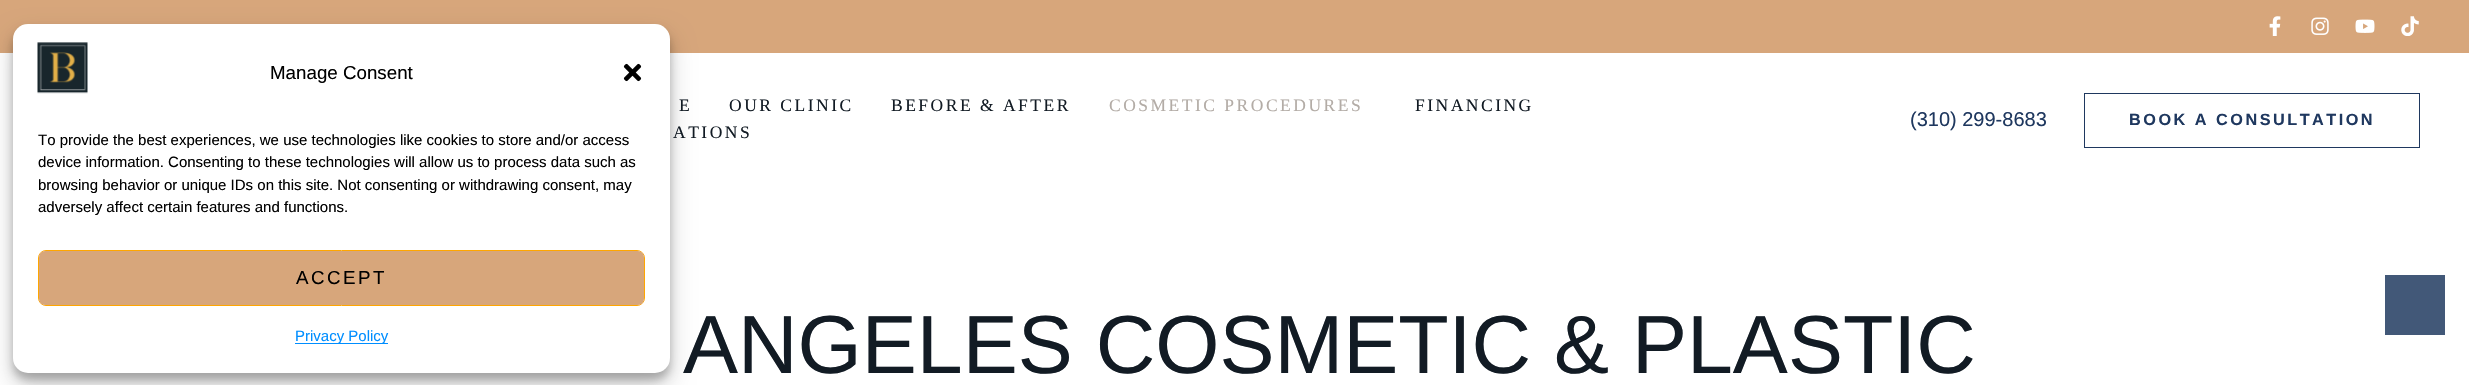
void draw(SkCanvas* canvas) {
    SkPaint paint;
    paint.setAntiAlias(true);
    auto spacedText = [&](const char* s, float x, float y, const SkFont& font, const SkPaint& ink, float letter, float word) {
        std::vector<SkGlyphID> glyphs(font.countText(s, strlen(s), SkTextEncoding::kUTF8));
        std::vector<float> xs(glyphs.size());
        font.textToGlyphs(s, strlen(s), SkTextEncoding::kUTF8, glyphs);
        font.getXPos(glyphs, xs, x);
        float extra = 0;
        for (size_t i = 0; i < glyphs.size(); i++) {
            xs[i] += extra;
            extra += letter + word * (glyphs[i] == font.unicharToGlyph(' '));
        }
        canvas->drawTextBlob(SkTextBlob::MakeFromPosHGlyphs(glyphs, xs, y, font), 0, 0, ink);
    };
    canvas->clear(0xFFFFFFFF);
    paint.setColor(0xFFD7A67B);
    canvas->drawRect(SkRect::MakeXYWH(0, 0, 2469, 53), paint);
    paint.setColor(0x3B000000);
    paint.setMaskFilter(SkMaskFilter::MakeBlur(kNormal_SkBlurStyle, 4));
    canvas->drawRoundRect(SkRect::MakeXYWH(13, 31, 657, 349), 15, 15, paint);
    paint.setMaskFilter(nullptr);
    paint.setColor(0x30000000);
    paint.setMaskFilter(SkMaskFilter::MakeBlur(kNormal_SkBlurStyle, 12.5f));
    canvas->drawRoundRect(SkRect::MakeXYWH(13, 36, 657, 349), 15, 15, paint);
    paint.setMaskFilter(nullptr);
    paint.setColor(0xFFFFFFFF);
    canvas->drawRoundRect(SkRect::MakeXYWH(13, 24, 657, 349), 15, 15, paint);
    canvas->drawImageRect(SkImages::DeferredFromEncodedData(SkData::MakeFromFileName("img1.png")), SkRect::MakeXYWH(37, 42, 51, 52), SkSamplingOptions());
    SkFont font1(fontMgr->matchFamilyStyle("Liberation Sans", SkFontStyle::Normal()), 18.75f);
    font1.setSubpixel(true);
    paint.setColor(0xFF000000);
    canvas->drawString("Manage Consent", 270, 79, font1, paint);
    canvas->drawImageRect(SkImages::DeferredFromEncodedData(SkData::MakeFromFileName("img2.png")), SkRect::MakeXYWH(623, 63, 19, 19), SkSamplingOptions());
    SkFont font2(fontMgr->matchFamilyStyle("Liberation Sans", SkFontStyle::Normal()), 15);
    font2.setSubpixel(true);
    canvas->drawString("To provide the best experiences, we use technologies like cookies to store and/or access", 38, 145, font2, paint);
    canvas->drawString("device information. Consenting to these technologies will allow us to process data such as", 38, 167, font2, paint);
    canvas->drawString("browsing behavior or unique IDs on this site. Not consenting or withdrawing consent, may", 38, 190, font2, paint);
    canvas->drawString("adversely affect certain features and functions.", 38, 212, font2, paint);
    paint.setStyle(SkPaint::kStroke_Style);
    paint.setStrokeWidth(1);
    paint.setColor(0xFFFFA600);
    canvas->drawRoundRect(SkRect::MakeXYWH(38.5f, 250.5f, 606, 55), 7.5f, 7.5f, paint);
    paint.setStyle(SkPaint::kFill_Style);
    paint.setColor(0xFFD7A67B);
    canvas->drawRoundRect(SkRect::MakeXYWH(39, 251, 605, 54), 6, 6, paint);
    paint.setColor(0xFF000000);
    spacedText("ACCEPT", 296, 284, font1, paint, 2.5f, 0);
    paint.setColor(0xFF008EFF);
    canvas->drawRect(SkRect::MakeXYWH(295, 343, 93, 1), paint);
    canvas->drawString("Privacy Policy", 295, 341, font2, paint);
    canvas->drawImageRect(SkImages::DeferredFromEncodedData(SkData::MakeFromFileName("img3.png")), SkRect::MakeXYWH(2269, 16, 12, 20), SkSamplingOptions());
    canvas->drawImageRect(SkImages::DeferredFromEncodedData(SkData::MakeFromFileName("img4.png")), SkRect::MakeXYWH(2311, 17, 18, 18), SkSamplingOptions());
    canvas->drawImageRect(SkImages::DeferredFromEncodedData(SkData::MakeFromFileName("img5.png")), SkRect::MakeXYWH(2355, 19, 20, 14), SkSamplingOptions());
    canvas->drawImageRect(SkImages::DeferredFromEncodedData(SkData::MakeFromFileName("img6.png")), SkRect::MakeXYWH(2401, 16, 18, 20), SkSamplingOptions());
    SkFont font3(fontMgr->matchFamilyStyle("Liberation Serif", SkFontStyle::Normal()), 17.5f);
    font3.setSubpixel(true);
    paint.setColor(0xFF121B24);
    spacedText("E", 679, 111, font3, paint, 2.5f, 0);
    spacedText("OUR CLINIC", 729, 111, font3, paint, 2.5f, 0);
    spacedText("BEFORE & AFTER", 891, 111, font3, paint, 2.5f, 0);
    paint.setColor(0xFFB3ACA6);
    spacedText("COSMETIC PROCEDURES", 1109, 111, font3, paint, 2.5f, 0);
    paint.setColor(0xFF121B24);
    spacedText("FINANCING", 1415, 111, font3, paint, 2.5f, 0);
    spacedText("ATIONS", 673, 138, font3, paint, 2.5f, 0);
    SkFont font4(fontMgr->matchFamilyStyle("Liberation Sans", SkFontStyle::Normal()), 20);
    font4.setSubpixel(true);
    paint.setColor(0xFF1F385F);
    canvas->drawString("(310) 299-8683", 1910, 126, font4, paint);
    paint.setStyle(SkPaint::kStroke_Style);
    canvas->drawRect(SkRect::MakeXYWH(2084.5f, 93.5f, 335, 54), paint);
    SkFont font5(fontMgr->matchFamilyStyle("Liberation Sans", SkFontStyle::Bold()), 16.25f);
    font5.setSubpixel(true);
    paint.setStyle(SkPaint::kFill_Style);
    spacedText("BOOK A CONSULTATION", 2129, 125, font5, paint, 2.5f, 0);
    paint.setColor(0xFF425878);
    canvas->drawRect(SkRect::MakeXYWH(2385, 275, 60, 60), paint);
    SkFont font6(fontMgr->matchFamilyStyle("Liberation Sans", SkFontStyle::Normal()), 82.5f);
    font6.setSubpixel(true);
    paint.setColor(0xFF121B24);
    canvas->drawString("ANGELES COSMETIC & PLASTIC", 683, 373, font6, paint);
}
